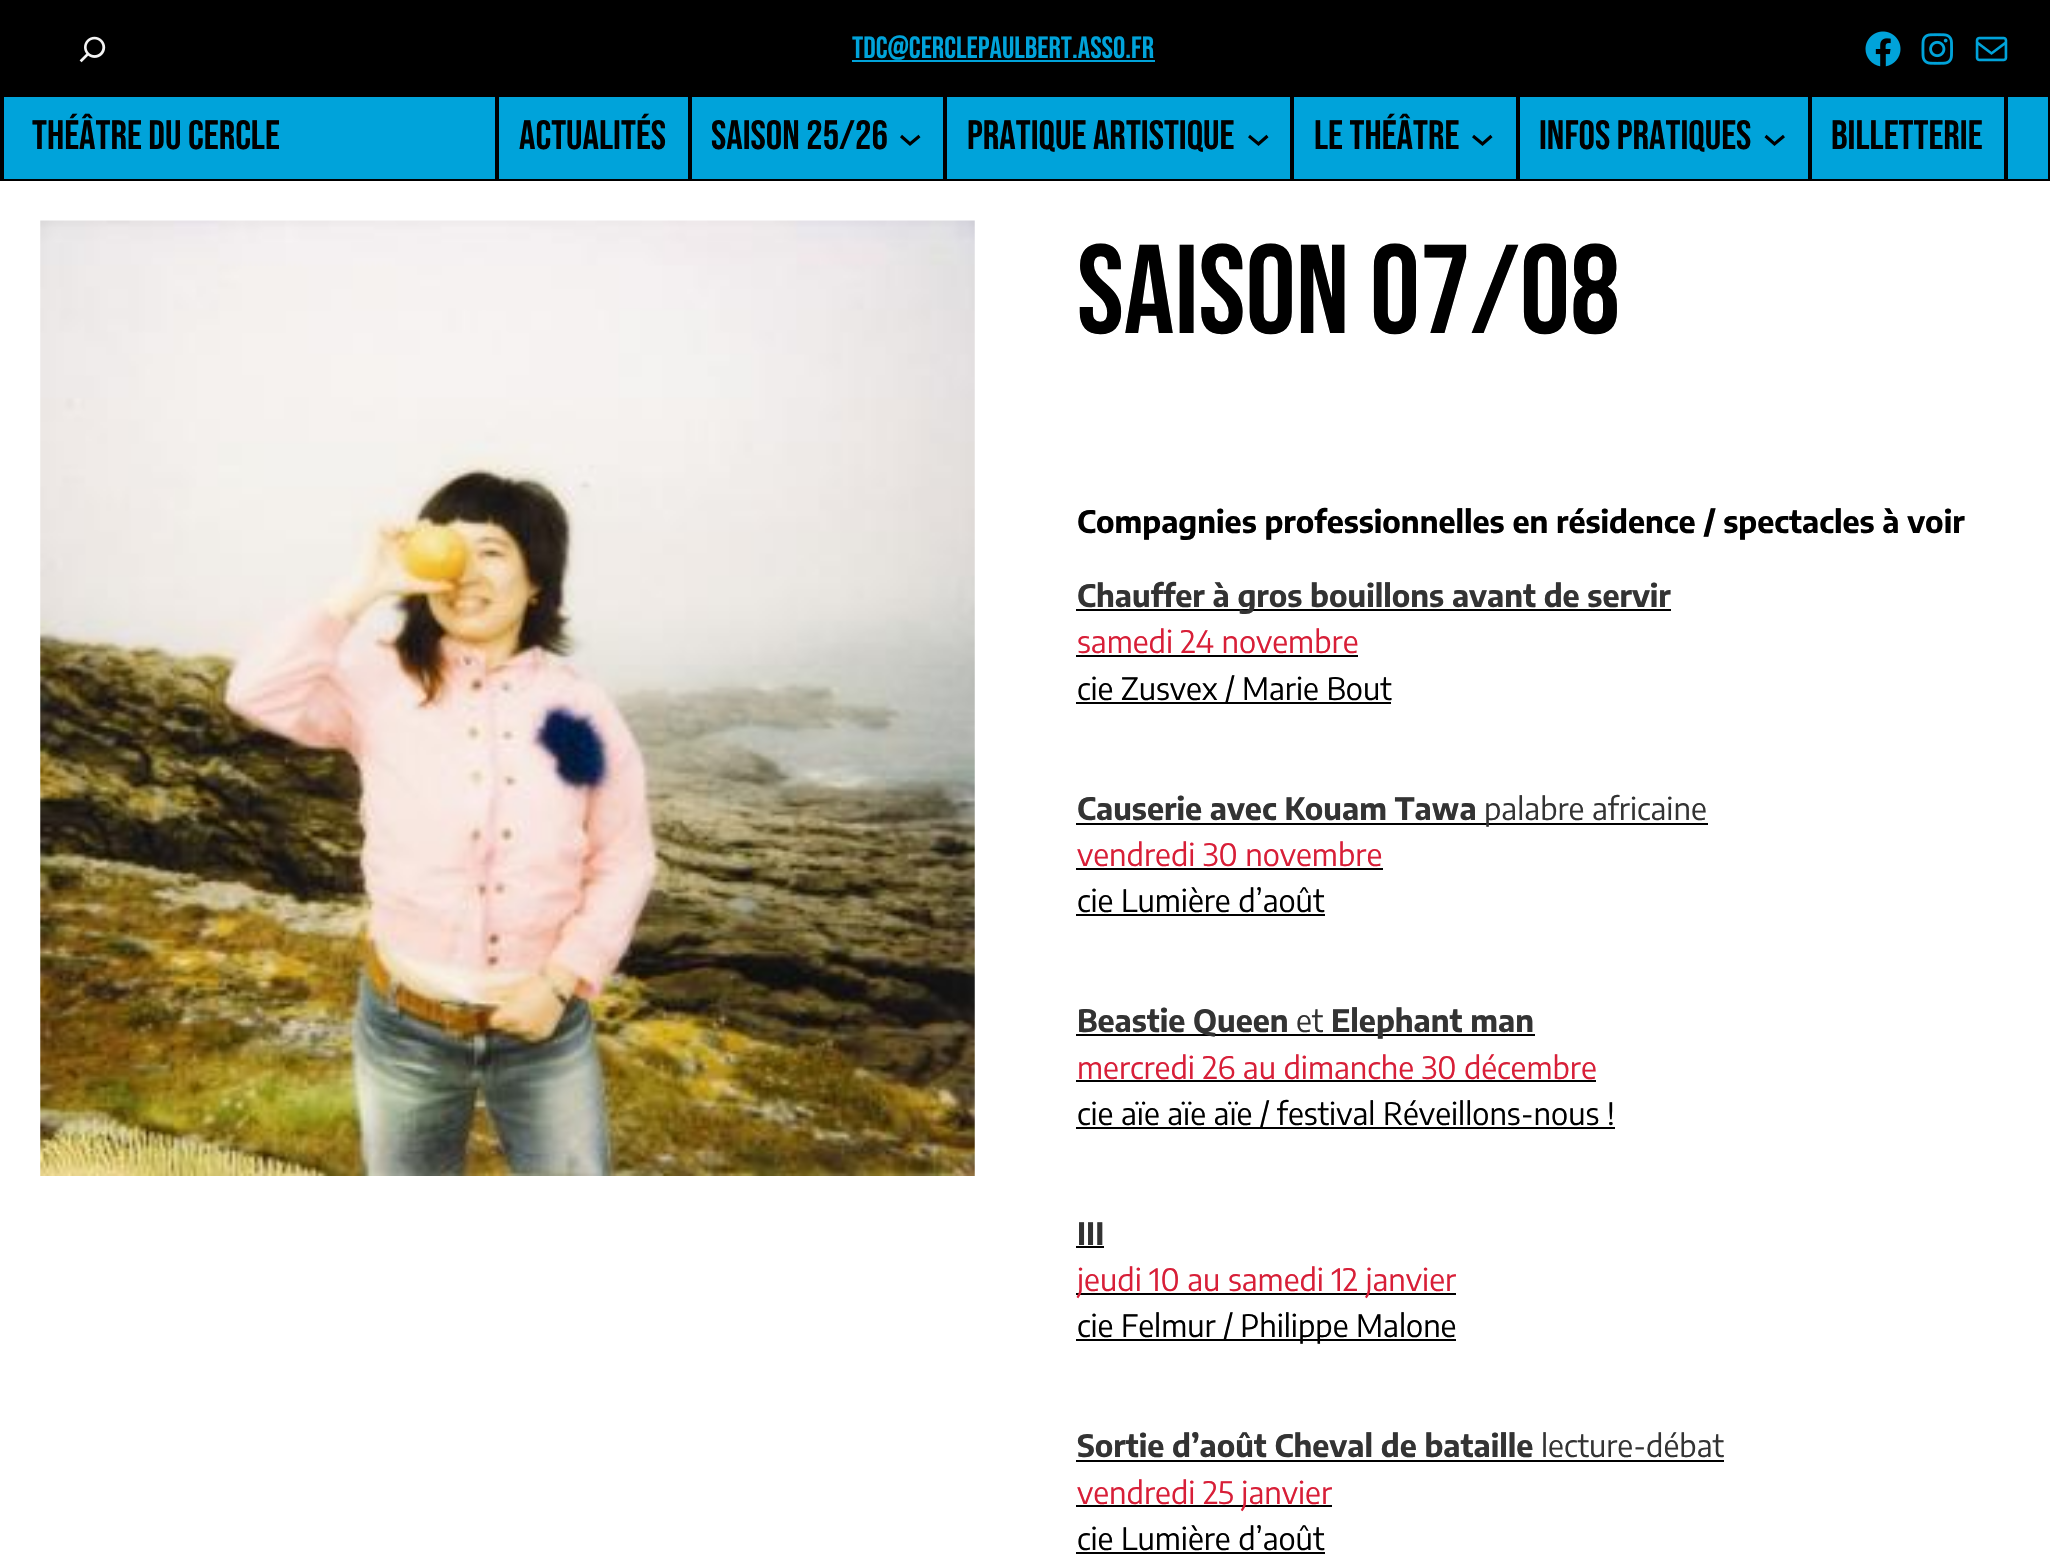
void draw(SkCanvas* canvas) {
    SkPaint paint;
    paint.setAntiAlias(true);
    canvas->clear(0xFFFFFFFF);
    paint.setColor(0xFF000000);
    canvas->drawRect(SkRect::MakeXYWH(0, 0, 2050, 97), paint);
    canvas->drawImageRect(SkImages::DeferredFromEncodedData(SkData::MakeFromFileName("img1.png")), SkRect::MakeXYWH(79, 36, 27, 27), SkSamplingOptions());
    SkFont font1(fontMgr->matchFamilyStyle("Bebas Neue", SkFontStyle::Normal()), 30.75f);
    font1.setSubpixel(true);
    paint.setColor(0xFF00A3DA);
    canvas->drawString("TDC@CERCLEPAULBERT.ASSO.FR", 852, 58, font1, paint);
    canvas->drawRect(SkRect::MakeXYWH(852, 60, 303, 2), paint);
    canvas->drawImageRect(SkImages::DeferredFromEncodedData(SkData::MakeFromFileName("img2.png")), SkRect::MakeXYWH(1865, 31, 36, 36), SkSamplingOptions());
    canvas->drawImageRect(SkImages::DeferredFromEncodedData(SkData::MakeFromFileName("img3.png")), SkRect::MakeXYWH(1921, 33, 32, 32), SkSamplingOptions());
    canvas->drawImageRect(SkImages::DeferredFromEncodedData(SkData::MakeFromFileName("img4.png")), SkRect::MakeXYWH(1975, 36, 33, 26), SkSamplingOptions());
    canvas->drawRect(SkRect::MakeXYWH(4, 97, 2044, 82), paint);
    paint.setColor(0xFF000000);
    canvas->drawRect(SkRect::MakeXYWH(2048, 93, 2, 87), paint);
    canvas->drawRect(SkRect::MakeXYWH(0, 179, 2050, 2), paint);
    canvas->drawRect(SkRect::MakeXYWH(0, 93, 4, 87), paint);
    SkFont font2(fontMgr->matchFamilyStyle("Bebas Neue", SkFontStyle::Normal()), 41);
    font2.setSubpixel(true);
    canvas->drawString("THÉÂTRE DU CERCLE", 32, 149, font2, paint);
    canvas->drawRect(SkRect::MakeXYWH(495, 96, 4, 83), paint);
    canvas->drawRect(SkRect::MakeXYWH(688, 96, 4, 83), paint);
    canvas->drawString("ACTUALITÉS", 519, 149, font2, paint);
    canvas->drawRect(SkRect::MakeXYWH(943, 96, 4, 83), paint);
    canvas->drawString("SAISON 25/26", 711, 149, font2, paint);
    paint.setStyle(SkPaint::kStroke_Style);
    paint.setStrokeWidth(3.1f);
    canvas->drawPath(SkPathBuilder().moveTo(901, 136).lineTo(910, 144).lineTo(919.5f, 136).detach(), paint);
    paint.setStyle(SkPaint::kFill_Style);
    canvas->drawRect(SkRect::MakeXYWH(1290, 96, 4, 83), paint);
    canvas->drawString("PRATIQUE ARTISTIQUE", 967, 149, font2, paint);
    paint.setStyle(SkPaint::kStroke_Style);
    canvas->drawPath(SkPathBuilder().moveTo(1249, 136).lineTo(1258.5f, 144).lineTo(1267.5f, 136).detach(), paint);
    paint.setStyle(SkPaint::kFill_Style);
    canvas->drawRect(SkRect::MakeXYWH(1516, 96, 4, 83), paint);
    canvas->drawString("LE THÉÂTRE", 1314, 149, font2, paint);
    paint.setStyle(SkPaint::kStroke_Style);
    canvas->drawPath(SkPathBuilder().moveTo(1473, 136).lineTo(1482.5f, 144).lineTo(1491.5f, 136).detach(), paint);
    paint.setStyle(SkPaint::kFill_Style);
    canvas->drawRect(SkRect::MakeXYWH(1808, 96, 4, 83), paint);
    canvas->drawString("INFOS PRATIQUES", 1539, 149, font2, paint);
    paint.setStyle(SkPaint::kStroke_Style);
    canvas->drawPath(SkPathBuilder().moveTo(1765.5f, 136).lineTo(1774.5f, 144).lineTo(1784, 136).detach(), paint);
    paint.setStyle(SkPaint::kFill_Style);
    canvas->drawRect(SkRect::MakeXYWH(2004, 96, 4, 83), paint);
    canvas->drawString("BILLETTERIE", 1831, 149, font2, paint);
    canvas->drawImageRect(SkImages::DeferredFromEncodedData(SkData::MakeFromFileName("img5.png")), SkRect::MakeXYWH(40, 220, 935, 956), SkSamplingOptions());
    SkFont font3(fontMgr->matchFamilyStyle("Bebas Neue", SkFontStyle::Normal()), 126);
    font3.setSubpixel(true);
    canvas->drawString("SAISON 07/08", 1077, 333, font3, paint);
    SkFont font4(fontMgr->matchFamilyStyle("Encode Sans", SkFontStyle::Bold()), 30.75f);
    font4.setSubpixel(true);
    canvas->drawString("Compagnies professionnelles en résidence / spectacles à voir", 1077, 533, font4, paint);
    canvas->drawRect(SkRect::MakeXYWH(1076, 609, 595, 2), paint);
    paint.setColor(0xFF333333);
    canvas->drawString("Chauffer à gros bouillons avant de servir", 1077, 607, font4, paint);
    SkFont font5(fontMgr->matchFamilyStyle("Encode Sans", SkFontStyle::Normal()), 30.75f);
    font5.setSubpixel(true);
    paint.setColor(0xFFD81F38);
    canvas->drawString("samedi 24 novembre", 1077, 653, font5, paint);
    paint.setColor(0xFF000000);
    canvas->drawRect(SkRect::MakeXYWH(1076, 655, 282, 2), paint);
    canvas->drawRect(SkRect::MakeXYWH(1076, 702, 315, 2), paint);
    canvas->drawString("cie Zusvex / Marie Bout", 1077, 700, font5, paint);
    paint.setColor(0xFF333333);
    canvas->drawString("Causerie avec Kouam Tawa", 1077, 820, font4, paint);
    paint.setColor(0xFF000000);
    canvas->drawRect(SkRect::MakeXYWH(1076, 823, 632, 2), paint);
    paint.setColor(0xFF333333);
    canvas->drawString("palabre africaine", 1484, 820, font5, paint);
    paint.setColor(0xFFD81F38);
    canvas->drawString("vendredi 30 novembre", 1077, 866, font5, paint);
    paint.setColor(0xFF000000);
    canvas->drawRect(SkRect::MakeXYWH(1076, 868, 307, 2), paint);
    canvas->drawString("cie Lumière d’août", 1077, 912, font5, paint);
    canvas->drawRect(SkRect::MakeXYWH(1076, 914, 249, 2), paint);
    canvas->drawRect(SkRect::MakeXYWH(1076, 1034, 459, 2), paint);
    paint.setColor(0xFF333333);
    canvas->drawString("Beastie Queen", 1077, 1032, font4, paint);
    canvas->drawString("et", 1296, 1032, font5, paint);
    canvas->drawString("Elephant man", 1331, 1032, font4, paint);
    paint.setColor(0xFFD81F38);
    canvas->drawString("mercredi 26 au dimanche 30 décembre", 1077, 1079, font5, paint);
    paint.setColor(0xFF000000);
    canvas->drawRect(SkRect::MakeXYWH(1076, 1080, 520, 2), paint);
    canvas->drawRect(SkRect::MakeXYWH(1076, 1127, 539, 2), paint);
    canvas->drawString("cie aïe aïe aïe / festival Réveillons-nous !", 1077, 1125, font5, paint);
    paint.setColor(0xFF333333);
    canvas->drawString("III", 1077, 1245, font4, paint);
    paint.setColor(0xFF000000);
    canvas->drawRect(SkRect::MakeXYWH(1076, 1246, 28, 2), paint);
    canvas->drawRect(SkRect::MakeXYWH(1076, 1293, 380, 2), paint);
    paint.setColor(0xFFD81F38);
    canvas->drawString("jeudi 10 au samedi 12 janvier", 1077, 1291, font5, paint);
    paint.setColor(0xFF000000);
    canvas->drawRect(SkRect::MakeXYWH(1076, 1339, 380, 2), paint);
    canvas->drawString("cie Felmur / Philippe Malone", 1077, 1337, font5, paint);
    paint.setColor(0xFF333333);
    canvas->drawString("Sortie d’août Cheval de bataille", 1077, 1457, font4, paint);
    canvas->drawString("lecture-débat", 1541, 1457, font5, paint);
    paint.setColor(0xFF000000);
    canvas->drawRect(SkRect::MakeXYWH(1076, 1460, 648, 2), paint);
    canvas->drawRect(SkRect::MakeXYWH(1076, 1505, 256, 2), paint);
    paint.setColor(0xFFD81F38);
    canvas->drawString("vendredi 25 janvier", 1077, 1504, font5, paint);
    paint.setColor(0xFF000000);
    canvas->drawString("cie Lumière d’août", 1077, 1550, font5, paint);
    canvas->drawRect(SkRect::MakeXYWH(1076, 1552, 249, 2), paint);
}
